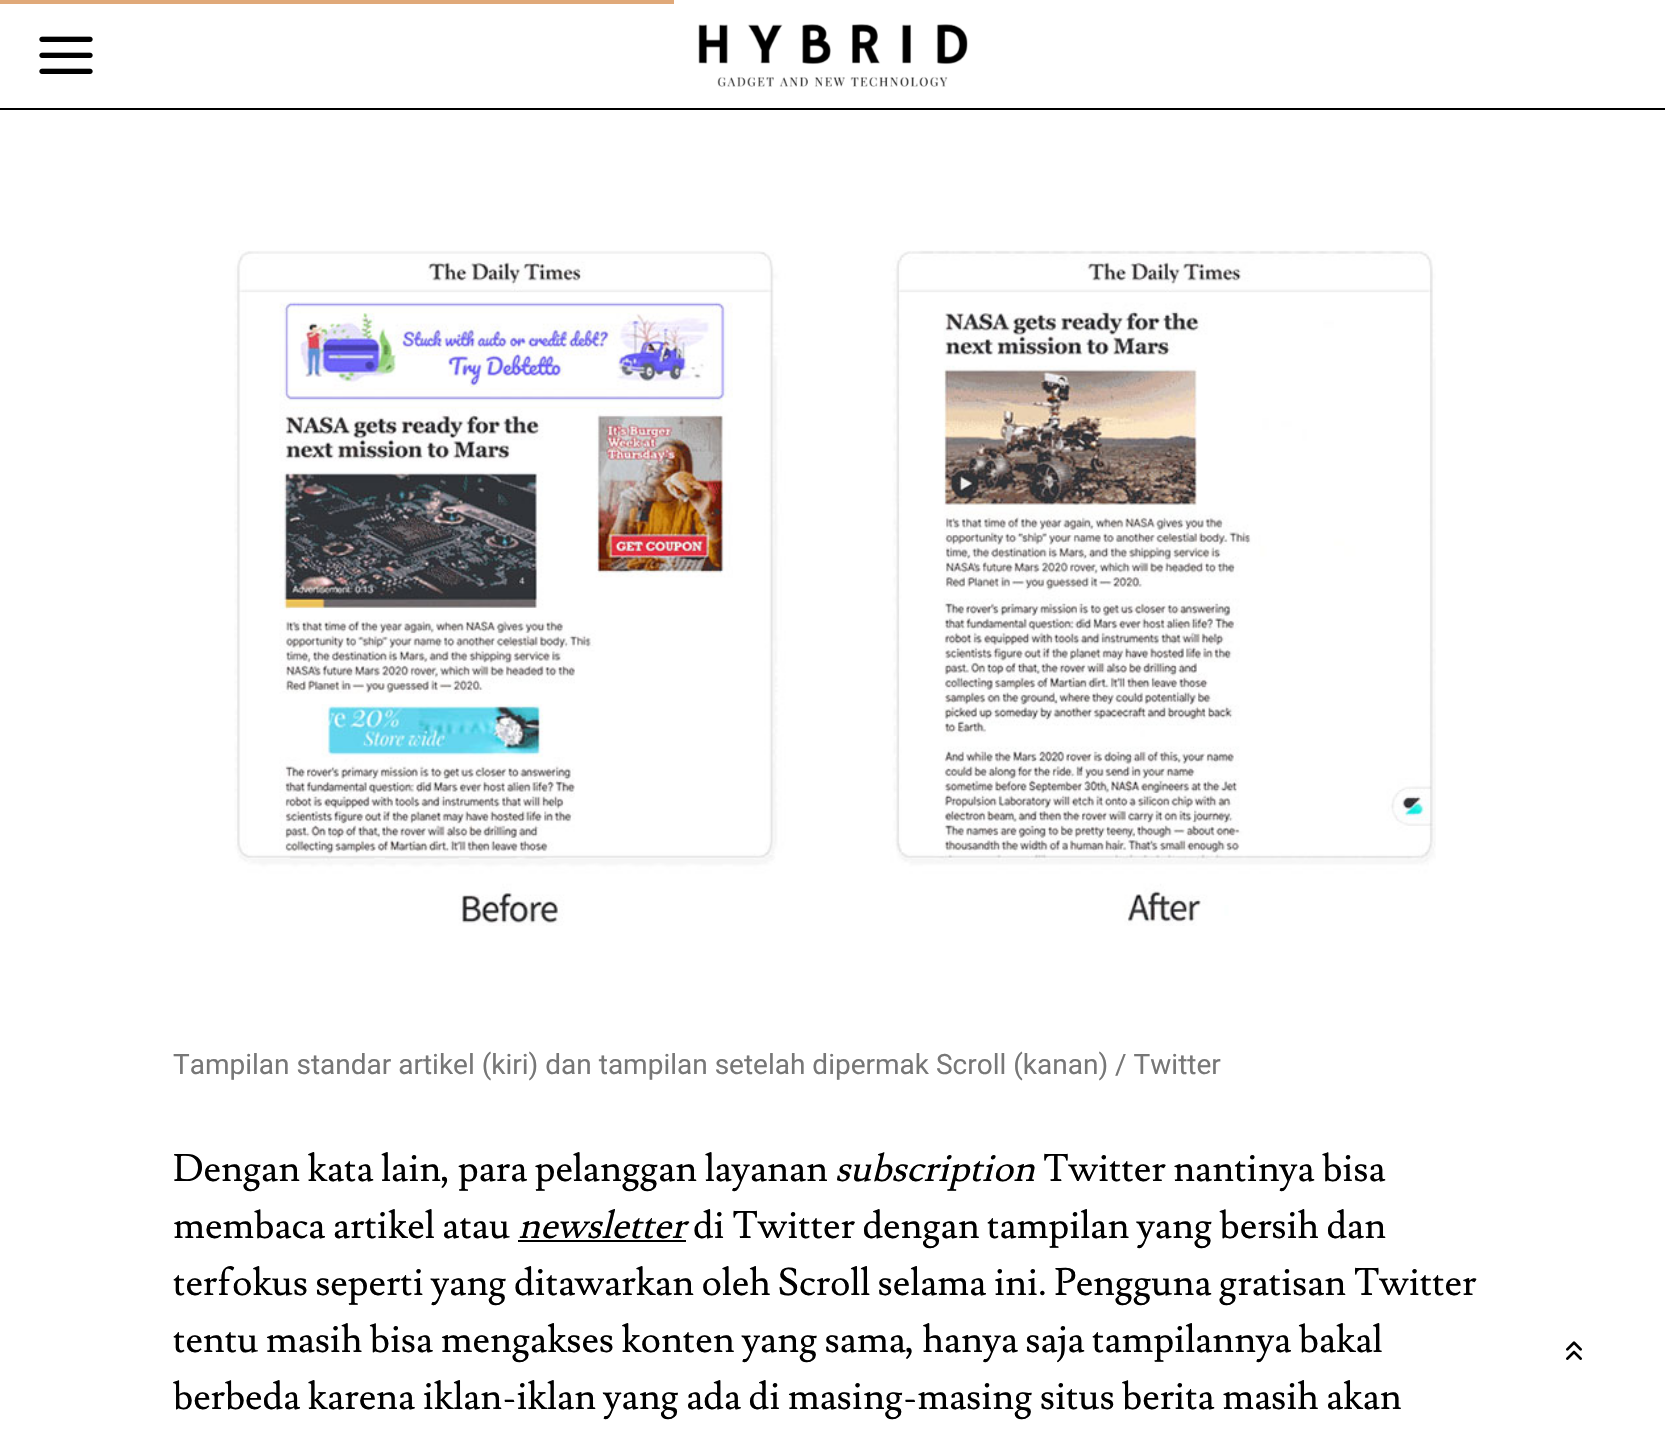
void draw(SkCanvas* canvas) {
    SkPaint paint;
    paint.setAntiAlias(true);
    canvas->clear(0xFFFFFFFF);
    paint.setColor(0xFFE0A979);
    canvas->drawRect(SkRect::MakeXYWH(0, 0, 674, 4), paint);
    paint.setColor(0xFF000000);
    canvas->drawRect(SkRect::MakeXYWH(0, 108, 1665, 2), paint);
    canvas->drawImageRect(SkImages::DeferredFromEncodedData(SkData::MakeFromFileName("img1.png")), SkRect::MakeXYWH(39, 36, 54, 38), SkSamplingOptions());
    canvas->drawImageRect(SkImages::DeferredFromEncodedData(SkData::MakeFromFileName("img2.png")), SkRect::MakeXYWH(698, 24, 270, 63), SkSamplingOptions());
    canvas->drawImageRect(SkImages::DeferredFromEncodedData(SkData::MakeFromFileName("img3.png")), SkRect::MakeXYWH(234, 250, 1202, 676), SkSamplingOptions());
    SkFont font1(fontMgr->matchFamilyStyle("Roboto", SkFontStyle::Normal()), 28);
    font1.setSubpixel(true);
    paint.setColor(0xFF777777);
    canvas->drawString("Tampilan standar artikel (kiri) dan tampilan setelah dipermak Scroll (kanan) / Twitter", 173, 1074, font1, paint);
    SkFont font2(fontMgr->matchFamilyStyle("Lusitana", SkFontStyle::Normal()), 38);
    font2.setSubpixel(true);
    paint.setColor(0xFF000000);
    canvas->drawString("Dengan kata lain, para pelanggan layanan", 173, 1181, font2, paint);
    SkFont font3(fontMgr->matchFamilyStyle("Lusitana", SkFontStyle::Italic()), 38);
    font3.setSubpixel(true);
    canvas->drawString("subscription", 835, 1181, font3, paint);
    canvas->drawString("Twitter nantinya bisa", 1043, 1181, font2, paint);
    canvas->drawString("membaca artikel atau", 173, 1238, font2, paint);
    canvas->drawString("newsletter", 518, 1238, font3, paint);
    canvas->drawRect(SkRect::MakeXYWH(518, 1240, 168, 2), paint);
    canvas->drawString("di Twitter dengan tampilan yang bersih dan", 693, 1238, font2, paint);
    canvas->drawString("terfokus seperti yang ditawarkan oleh Scroll selama ini. Pengguna gratisan Twitter", 173, 1295, font2, paint);
    canvas->drawString("tentu masih bisa mengakses konten yang sama, hanya saja tampilannya bakal", 173, 1352, font2, paint);
    canvas->drawString("berbeda karena iklan-iklan yang ada di masing-masing situs berita masih akan", 173, 1409, font2, paint);
    canvas->drawImageRect(SkImages::DeferredFromEncodedData(SkData::MakeFromFileName("img4.png")), SkRect::MakeXYWH(1566, 1341, 16, 19), SkSamplingOptions());
}
